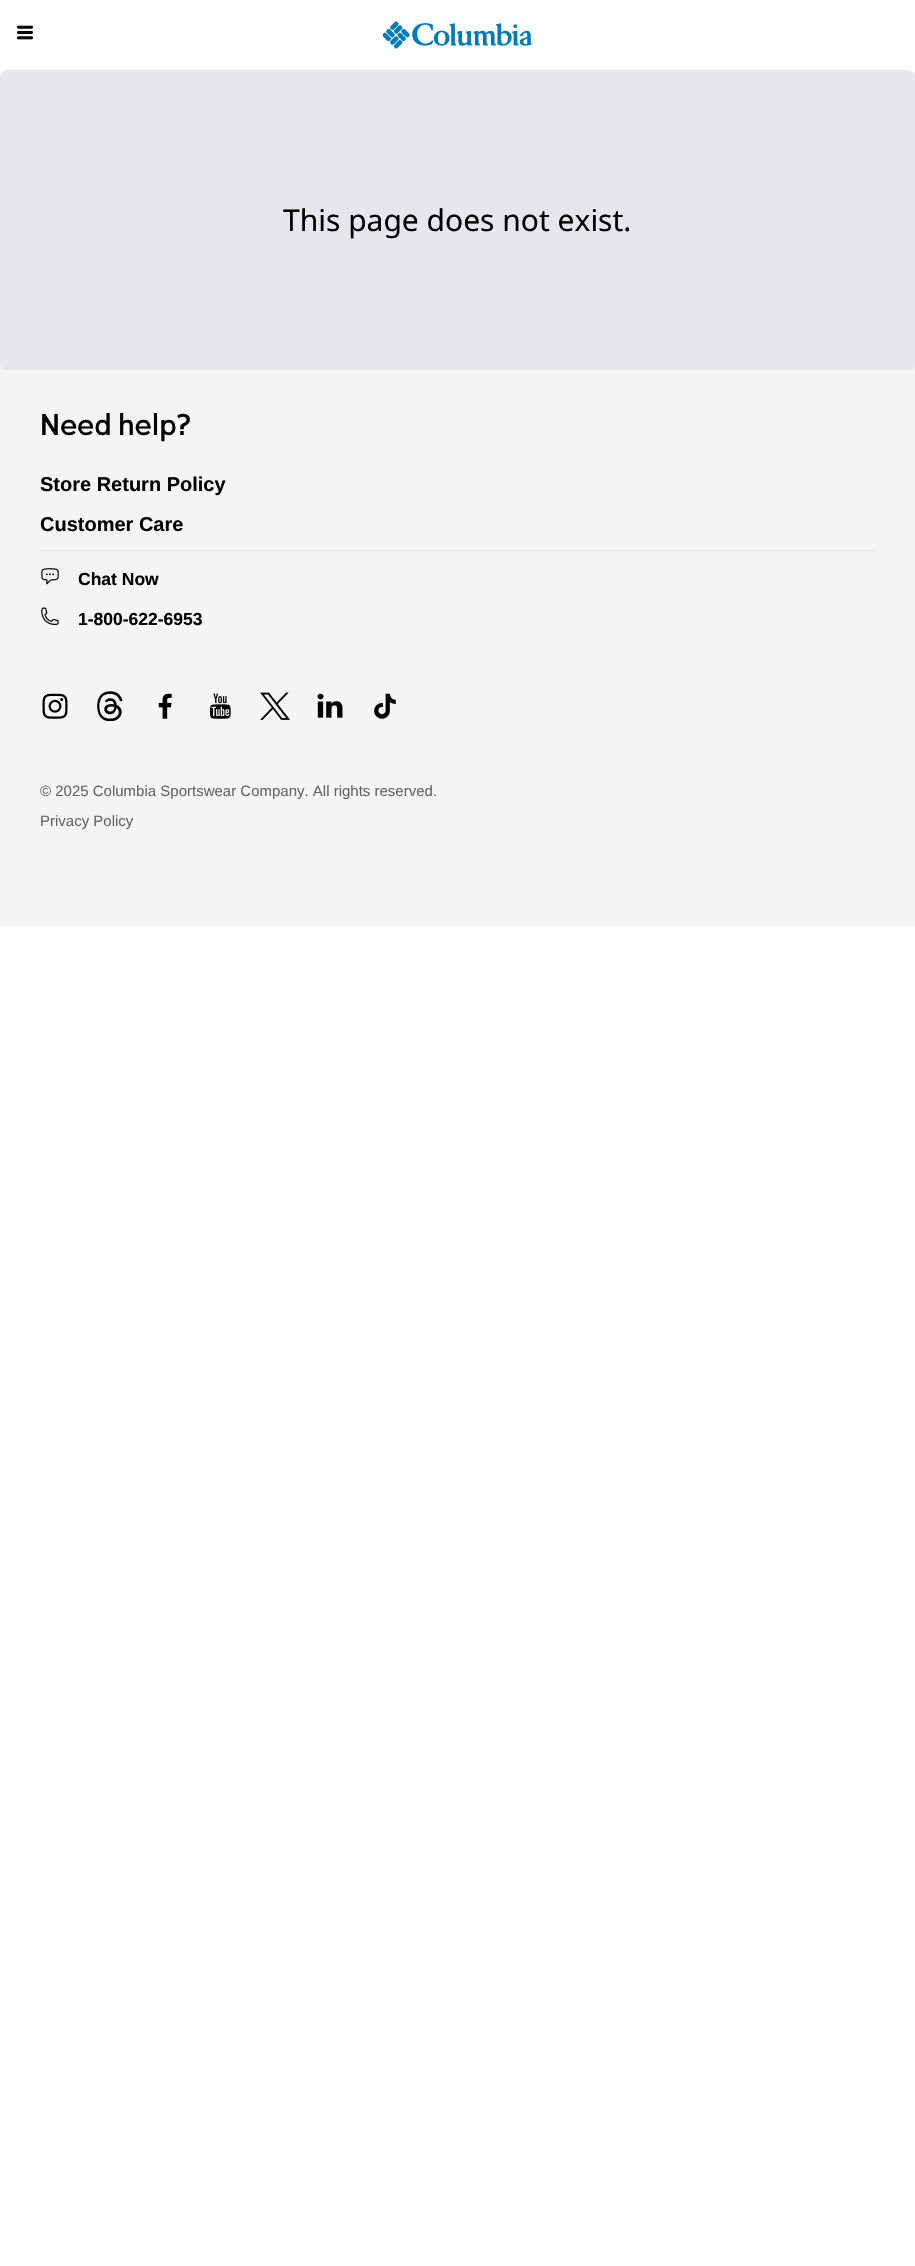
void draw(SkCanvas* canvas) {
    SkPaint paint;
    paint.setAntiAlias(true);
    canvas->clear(0xFFFFFFFF);
    canvas->drawImageRect(SkImages::DeferredFromEncodedData(SkData::MakeFromFileName("img1.png")), SkRect::MakeXYWH(16, 25, 18, 15), SkSamplingOptions());
    canvas->drawImageRect(SkImages::DeferredFromEncodedData(SkData::MakeFromFileName("img2.png")), SkRect::MakeXYWH(383, 21, 149, 28), SkSamplingOptions());
    paint.setColor(0x1A000000);
    paint.setMaskFilter(SkMaskFilter::MakeBlur(kNormal_SkBlurStyle, 2.5f));
    canvas->drawRoundRect(SkRect::MakeXYWH(3, 75, 910, 295), 5, 5, paint);
    paint.setMaskFilter(nullptr);
    paint.setMaskFilter(SkMaskFilter::MakeBlur(kNormal_SkBlurStyle, 4));
    canvas->drawRoundRect(SkRect::MakeXYWH(1, 76, 913, 298), 6, 6, paint);
    paint.setMaskFilter(nullptr);
    paint.setColor(0xFFE5E7EB);
    canvas->drawRoundRect(SkRect::MakeXYWH(0, 70, 915, 300), 8, 8, paint);
    SkFont font1(fontMgr->matchFamilyStyle("Noto Sans", SkFontStyle::Normal()), 30);
    font1.setSubpixel(true);
    paint.setColor(0xFF000000);
    canvas->drawString("This page does not exist.", 283, 231, font1, paint);
    paint.setColor(0xFFF5F5F5);
    canvas->drawRect(SkRect::MakeXYWH(0, 370, 915, 556), paint);
    SkFont font2(fontMgr->matchFamilyStyle("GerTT", SkFontStyle::Normal()), 30);
    font2.setSubpixel(true);
    paint.setColor(0xFF000000);
    canvas->drawString("Need help?", 40, 435, font2, paint);
    SkFont font3(fontMgr->matchFamilyStyle("Liberation Sans", SkFontStyle::Bold()), 20);
    font3.setSubpixel(true);
    canvas->drawString("Store Return Policy", 40, 491, font3, paint);
    canvas->drawString("Customer Care", 40, 531, font3, paint);
    paint.setColor(0xFFE5E7EB);
    canvas->drawRect(SkRect::MakeXYWH(40, 550, 835, 1), paint);
    canvas->drawImageRect(SkImages::DeferredFromEncodedData(SkData::MakeFromFileName("img3.png")), SkRect::MakeXYWH(41, 568, 18, 17), SkSamplingOptions());
    SkFont font4(fontMgr->matchFamilyStyle("Liberation Sans", SkFontStyle::Bold()), 17.5f);
    font4.setSubpixel(true);
    paint.setColor(0xFF000000);
    canvas->drawString("Chat Now", 78, 585, font4, paint);
    canvas->drawImageRect(SkImages::DeferredFromEncodedData(SkData::MakeFromFileName("img4.png")), SkRect::MakeXYWH(41, 607, 18, 18), SkSamplingOptions());
    canvas->drawString("1-800-622-6953", 78, 625, font4, paint);
    canvas->drawImageRect(SkImages::DeferredFromEncodedData(SkData::MakeFromFileName("img5.png")), SkRect::MakeXYWH(42, 693, 26, 26), SkSamplingOptions());
    canvas->drawImageRect(SkImages::DeferredFromEncodedData(SkData::MakeFromFileName("img6.png")), SkRect::MakeXYWH(97, 691, 26, 30), SkSamplingOptions());
    canvas->drawImageRect(SkImages::DeferredFromEncodedData(SkData::MakeFromFileName("img7.png")), SkRect::MakeXYWH(158, 693, 14, 26), SkSamplingOptions());
    canvas->drawImageRect(SkImages::DeferredFromEncodedData(SkData::MakeFromFileName("img8.png")), SkRect::MakeXYWH(210, 693, 21, 26), SkSamplingOptions());
    canvas->drawImageRect(SkImages::DeferredFromEncodedData(SkData::MakeFromFileName("img9.png")), SkRect::MakeXYWH(260, 692, 30, 28), SkSamplingOptions());
    canvas->drawImageRect(SkImages::DeferredFromEncodedData(SkData::MakeFromFileName("img10.png")), SkRect::MakeXYWH(317, 693, 26, 25), SkSamplingOptions());
    canvas->drawImageRect(SkImages::DeferredFromEncodedData(SkData::MakeFromFileName("img11.png")), SkRect::MakeXYWH(374, 693, 22, 26), SkSamplingOptions());
    SkFont font5(fontMgr->matchFamilyStyle("Liberation Sans", SkFontStyle::Normal()), 15);
    font5.setSubpixel(true);
    paint.setColor(0xFF666666);
    canvas->drawString("© 2025 Columbia Sportswear Company. All rights reserved.", 40, 796, font5, paint);
    canvas->drawString("Privacy Policy", 40, 826, font5, paint);
}
